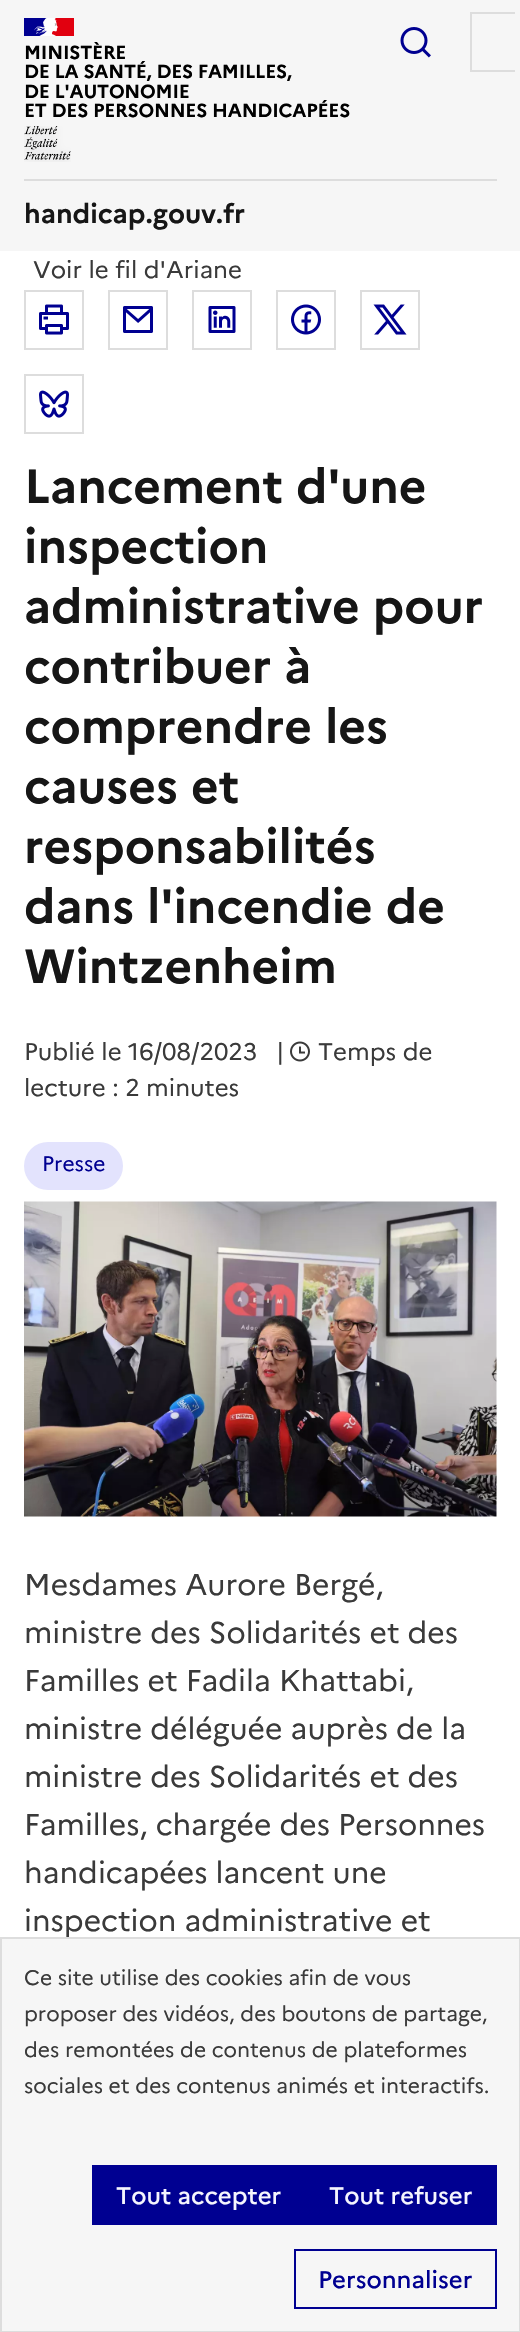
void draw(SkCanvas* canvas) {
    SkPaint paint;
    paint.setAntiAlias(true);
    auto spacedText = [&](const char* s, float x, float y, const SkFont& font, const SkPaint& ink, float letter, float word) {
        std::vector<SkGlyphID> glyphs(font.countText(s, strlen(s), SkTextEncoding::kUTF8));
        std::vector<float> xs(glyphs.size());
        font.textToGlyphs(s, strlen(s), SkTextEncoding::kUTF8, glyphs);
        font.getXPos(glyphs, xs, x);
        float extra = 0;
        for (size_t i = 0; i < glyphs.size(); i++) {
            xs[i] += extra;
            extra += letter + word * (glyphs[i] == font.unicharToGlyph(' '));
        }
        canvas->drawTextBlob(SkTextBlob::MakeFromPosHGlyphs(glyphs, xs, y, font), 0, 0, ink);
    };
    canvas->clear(0xFFFFFFFF);
    paint.setColor(0xFFF6F6F6);
    canvas->drawRect(SkRect::MakeXYWH(0, 0, 520, 251), paint);
    paint.setColor(0xFF000091);
    canvas->drawRect(SkRect::MakeXYWH(24, 18, 23, 18), paint);
    paint.setColor(0xFFE1000F);
    canvas->drawRect(SkRect::MakeXYWH(51, 18, 23, 18), paint);
    canvas->drawImageRect(SkImages::DeferredFromEncodedData(SkData::MakeFromFileName("img1.png")), SkRect::MakeXYWH(34, 18, 24, 18), SkSamplingOptions());
    SkFont font1(fontMgr->matchFamilyStyle("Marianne", SkFontStyle::Bold()), 18.9f);
    font1.setSubpixel(true);
    paint.setColor(0xFF000000);
    spacedText("MINISTÈRE", 24, 59, font1, paint, -0.2f, 0);
    spacedText("DE LA SANTÉ, DES FAMILLES,", 24, 78, font1, paint, -0.2f, 0);
    spacedText("DE L'AUTONOMIE", 24, 98, font1, paint, -0.2f, 0);
    spacedText("ET DES PERSONNES HANDICAPÉES", 24, 117, font1, paint, -0.2f, 0);
    canvas->drawImageRect(SkImages::DeferredFromEncodedData(SkData::MakeFromFileName("img2.png")), SkRect::MakeXYWH(24, 126, 47, 36), SkSamplingOptions());
    canvas->drawImageRect(SkImages::DeferredFromEncodedData(SkData::MakeFromFileName("img3.png")), SkRect::MakeXYWH(400, 27, 31, 31), SkSamplingOptions());
    canvas->save();
    canvas->clipRect(SkRect::MakeXYWH(6, 0, 509, 179));
    paint.setStyle(SkPaint::kStroke_Style);
    paint.setStrokeWidth(2);
    paint.setColor(0xFFDDDDDD);
    canvas->drawRect(SkRect::MakeXYWH(471, 13, 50, 58), paint);
    canvas->restore();
    paint.setStyle(SkPaint::kFill_Style);
    canvas->drawRect(SkRect::MakeXYWH(24, 179, 473, 2), paint);
    SkFont font2(fontMgr->matchFamilyStyle("Marianne", SkFontStyle::Bold()), 27);
    font2.setSubpixel(true);
    paint.setColor(0xFF161616);
    canvas->drawString("handicap.gouv.fr", 24, 223, font2, paint);
    SkFont font3(fontMgr->matchFamilyStyle("Marianne", SkFontStyle::Normal()), 24);
    font3.setSubpixel(true);
    paint.setColor(0xFF3A3A3A);
    canvas->drawString("Voir le fil d'Ariane", 33, 278, font3, paint);
    paint.setStyle(SkPaint::kStroke_Style);
    paint.setColor(0xFFDDDDDD);
    canvas->drawRect(SkRect::MakeXYWH(25, 291, 58, 58), paint);
    canvas->drawImageRect(SkImages::DeferredFromEncodedData(SkData::MakeFromFileName("img4.png")), SkRect::MakeXYWH(39, 304, 30, 31), SkSamplingOptions());
    canvas->drawRect(SkRect::MakeXYWH(109, 291, 58, 58), paint);
    canvas->drawImageRect(SkImages::DeferredFromEncodedData(SkData::MakeFromFileName("img5.png")), SkRect::MakeXYWH(123, 306, 30, 27), SkSamplingOptions());
    canvas->drawRect(SkRect::MakeXYWH(193, 291, 58, 58), paint);
    canvas->drawImageRect(SkImages::DeferredFromEncodedData(SkData::MakeFromFileName("img6.png")), SkRect::MakeXYWH(208, 306, 28, 27), SkSamplingOptions());
    canvas->drawRect(SkRect::MakeXYWH(277, 291, 58, 58), paint);
    canvas->drawImageRect(SkImages::DeferredFromEncodedData(SkData::MakeFromFileName("img7.png")), SkRect::MakeXYWH(291, 304, 30, 31), SkSamplingOptions());
    canvas->drawRect(SkRect::MakeXYWH(361, 291, 58, 58), paint);
    canvas->drawImageRect(SkImages::DeferredFromEncodedData(SkData::MakeFromFileName("img8.png")), SkRect::MakeXYWH(373, 304, 34, 31), SkSamplingOptions());
    canvas->drawRect(SkRect::MakeXYWH(25, 375, 58, 58), paint);
    canvas->drawImageRect(SkImages::DeferredFromEncodedData(SkData::MakeFromFileName("img9.png")), SkRect::MakeXYWH(39, 390, 30, 28), SkSamplingOptions());
    SkFont font4(fontMgr->matchFamilyStyle("Marianne", SkFontStyle::Bold()), 48);
    font4.setSubpixel(true);
    paint.setStyle(SkPaint::kFill_Style);
    paint.setColor(0xFF161616);
    canvas->drawString("Lancement d'une", 24, 503, font4, paint);
    canvas->drawString("inspection", 24, 563, font4, paint);
    canvas->drawString("administrative pour", 24, 623, font4, paint);
    canvas->drawString("contribuer à", 24, 683, font4, paint);
    canvas->drawString("comprendre les", 24, 743, font4, paint);
    canvas->drawString("causes et", 24, 803, font4, paint);
    canvas->drawString("responsabilités", 24, 863, font4, paint);
    canvas->drawString("dans l'incendie de", 24, 923, font4, paint);
    canvas->drawString("Wintzenheim", 24, 983, font4, paint);
    paint.setColor(0xFF3A3A3A);
    canvas->drawString("Publié le 16/08/2023", 24, 1060, font3, paint);
    canvas->drawImageRect(SkImages::DeferredFromEncodedData(SkData::MakeFromFileName("img10.png")), SkRect::MakeXYWH(290, 1041, 20, 21), SkSamplingOptions());
    canvas->drawString("Temps de", 318, 1060, font3, paint);
    canvas->drawString("lecture : 2 minutes", 24, 1096, font3, paint);
    canvas->drawString("|", 276, 1060, font3, paint);
    paint.setColor(0xFFE3E3FD);
    canvas->drawRoundRect(SkRect::MakeXYWH(24, 1142, 99, 48), 24, 24, paint);
    SkFont font5(fontMgr->matchFamilyStyle("Marianne", SkFontStyle::Normal()), 21);
    font5.setSubpixel(true);
    paint.setColor(0xFF000091);
    canvas->drawString("Presse", 42, 1171, font5, paint);
    canvas->drawImageRect(SkImages::DeferredFromEncodedData(SkData::MakeFromFileName("img11.png")), SkRect::MakeXYWH(24, 1201, 473, 316), SkSamplingOptions());
    SkFont font6(fontMgr->matchFamilyStyle("Marianne", SkFontStyle::Normal()), 30);
    font6.setSubpixel(true);
    paint.setColor(0xFF3A3A3A);
    canvas->drawString("Mesdames Aurore Bergé,", 24, 1595, font6, paint);
    canvas->drawString("ministre des Solidarités et des", 24, 1643, font6, paint);
    canvas->drawString("Familles et Fadila Khattabi,", 24, 1691, font6, paint);
    canvas->drawString("ministre déléguée auprès de la", 24, 1739, font6, paint);
    canvas->drawString("ministre des Solidarités et des", 24, 1787, font6, paint);
    canvas->drawString("Familles, chargée des Personnes", 24, 1835, font6, paint);
    canvas->drawString("handicapées lancent une", 24, 1883, font6, paint);
    canvas->drawString("inspection administrative et", 24, 1931, font6, paint);
    paint.setColor(0xFFF6F6F6);
    canvas->drawRect(SkRect::MakeXYWH(1, 1938, 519, 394), paint);
    paint.setStyle(SkPaint::kStroke_Style);
    paint.setColor(0xFFDDDDDD);
    canvas->drawRect(SkRect::MakeXYWH(1, 1938, 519, 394), paint);
    paint.setStyle(SkPaint::kFill_Style);
    paint.setColor(0xFF3A3A3A);
    canvas->drawString("Ce site utilise des cookies afin de vous", 24, 1985, font5, paint);
    canvas->drawString("proposer des vidéos, des boutons de partage,", 24, 2021, font5, paint);
    canvas->drawString("des remontées de contenus de plateformes", 24, 2057, font5, paint);
    canvas->drawString("sociales et des contenus animés et interactifs.", 24, 2093, font5, paint);
    paint.setColor(0xFF000091);
    canvas->drawRect(SkRect::MakeXYWH(92, 2165, 405, 60), paint);
    SkFont font7(fontMgr->matchFamilyStyle("Marianne", SkFontStyle(500, SkFontStyle::kNormal_Width, SkFontStyle::kUpright_Slant)), 24);
    font7.setSubpixel(true);
    paint.setColor(0xFFF5F5FE);
    canvas->drawString("Tout accepter", 116, 2204, font7, paint);
    canvas->drawString("Tout refuser", 329, 2204, font7, paint);
    paint.setStyle(SkPaint::kStroke_Style);
    paint.setColor(0xFF000091);
    canvas->drawRect(SkRect::MakeXYWH(295, 2250, 201, 58), paint);
    paint.setStyle(SkPaint::kFill_Style);
    canvas->drawString("Personnaliser", 318, 2288, font7, paint);
}
